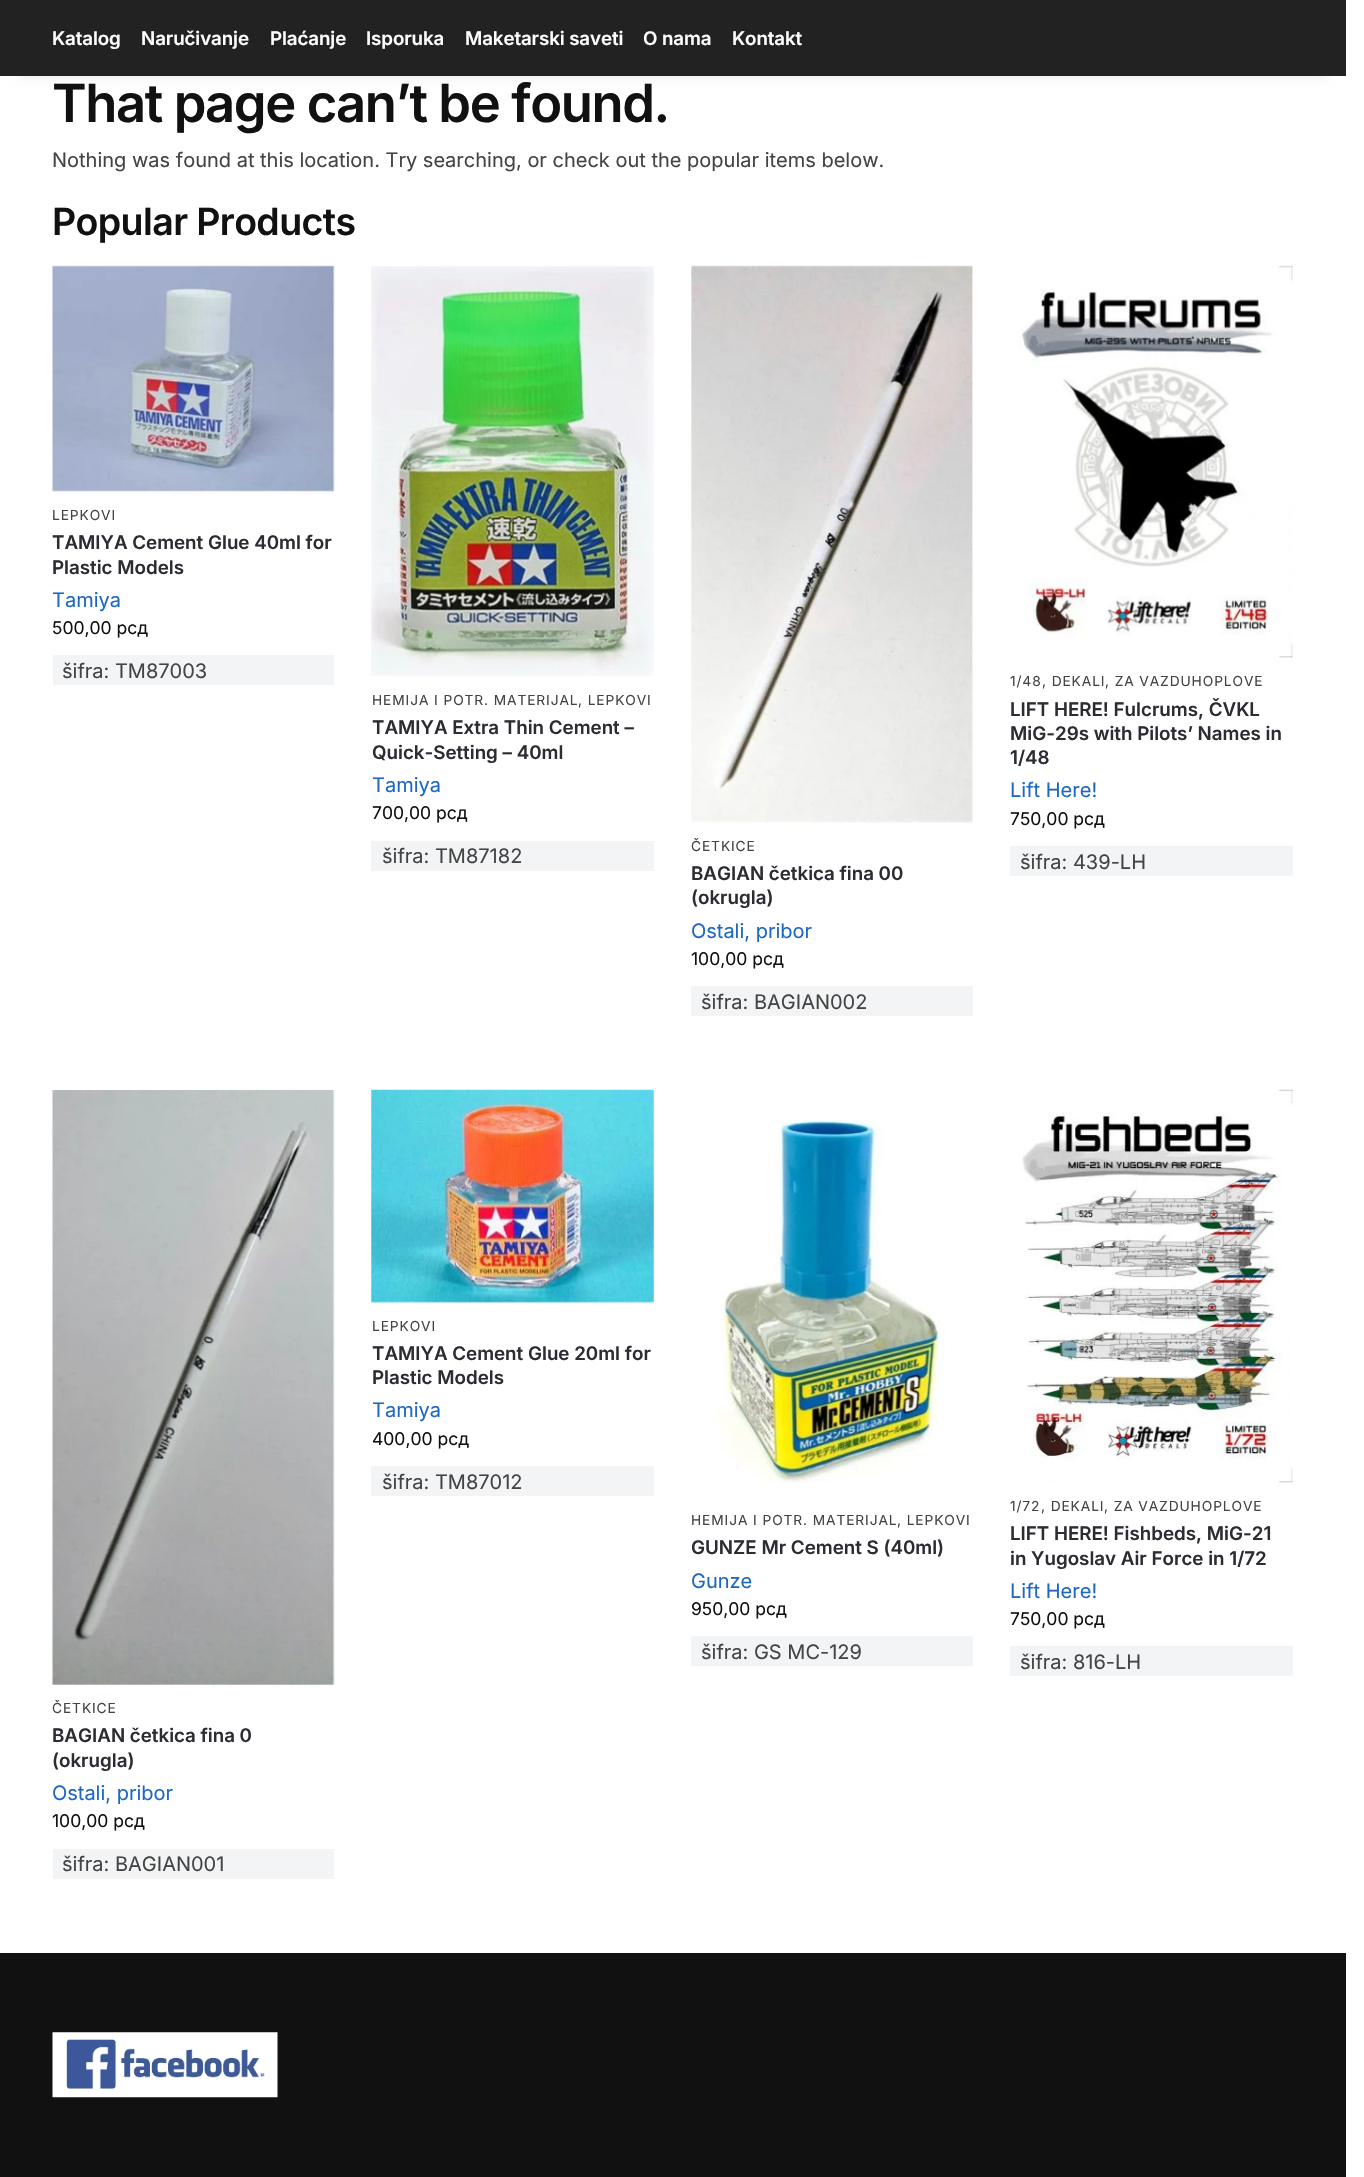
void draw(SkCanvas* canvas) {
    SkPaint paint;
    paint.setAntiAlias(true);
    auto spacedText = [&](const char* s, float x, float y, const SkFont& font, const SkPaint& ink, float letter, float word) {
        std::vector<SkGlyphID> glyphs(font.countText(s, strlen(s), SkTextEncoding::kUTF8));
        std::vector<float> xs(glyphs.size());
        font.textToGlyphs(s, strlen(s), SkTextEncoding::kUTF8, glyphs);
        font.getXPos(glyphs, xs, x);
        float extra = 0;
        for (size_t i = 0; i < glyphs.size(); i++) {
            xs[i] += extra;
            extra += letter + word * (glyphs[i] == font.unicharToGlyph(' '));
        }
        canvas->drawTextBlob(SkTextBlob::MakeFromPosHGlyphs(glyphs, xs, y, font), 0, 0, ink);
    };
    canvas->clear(0xFFFFFFFF);
    paint.setColor(0x1A000000);
    paint.setMaskFilter(SkMaskFilter::MakeBlur(kNormal_SkBlurStyle, 6));
    canvas->drawRect(SkRect::MakeXYWH(19, 38, 1309, 38), paint);
    paint.setMaskFilter(nullptr);
    paint.setColor(0xFF222222);
    canvas->drawRect(SkRect::MakeXYWH(0, 0, 1346, 76), paint);
    SkFont font1(fontMgr->matchFamilyStyle("Inter", SkFontStyle(600, SkFontStyle::kNormal_Width, SkFontStyle::kUpright_Slant)), 18.75f);
    font1.setSubpixel(true);
    paint.setColor(0xFFFFFFFF);
    spacedText("Katalog", 52, 45, font1, paint, -0.1f, 0);
    spacedText("Naručivanje", 141, 45, font1, paint, -0.1f, 0);
    spacedText("Plaćanje", 270, 45, font1, paint, -0.1f, 0);
    spacedText("Isporuka", 366, 45, font1, paint, -0.1f, 0);
    spacedText("Maketarski saveti", 465, 45, font1, paint, -0.1f, 0);
    spacedText("O nama", 643, 45, font1, paint, -0.1f, 0);
    spacedText("Kontakt", 732, 45, font1, paint, -0.1f, 0);
    SkFont font2(fontMgr->matchFamilyStyle("Inter", SkFontStyle(600, SkFontStyle::kNormal_Width, SkFontStyle::kUpright_Slant)), 52.5f);
    font2.setSubpixel(true);
    paint.setColor(0xFF111111);
    spacedText("That page can’t be found.", 52, 122, font2, paint, -1.4f, 0);
    SkFont font3(fontMgr->matchFamilyStyle("Inter", SkFontStyle::Normal()), 20);
    font3.setSubpixel(true);
    paint.setColor(0xFF444444);
    canvas->drawString("Nothing was found at this location. Try searching, or check out the popular items below.", 52, 167, font3, paint);
    SkFont font4(fontMgr->matchFamilyStyle("Inter", SkFontStyle(600, SkFontStyle::kNormal_Width, SkFontStyle::kUpright_Slant)), 37.5f);
    font4.setSubpixel(true);
    paint.setColor(0xFF111111);
    spacedText("Popular Products", 52, 235, font4, paint, -0.6f, 0);
    canvas->drawImageRect(SkImages::DeferredFromEncodedData(SkData::MakeFromFileName("img1.png")), SkRect::MakeXYWH(52, 265, 283, 227), SkSamplingOptions());
    SkFont font5(fontMgr->matchFamilyStyle("Inter", SkFontStyle::Normal()), 13.75f);
    font5.setSubpixel(true);
    paint.setColor(0xFF444444);
    spacedText("LEPKOVI", 52, 520, font5, paint, 0.9f, 0);
    paint.setColor(0xFF2C2D33);
    canvas->drawString("TAMIYA Cement Glue 40ml for", 52, 549, font1, paint);
    canvas->drawString("Plastic Models", 52, 574, font1, paint);
    paint.setColor(0xFF1E68C4);
    canvas->drawString("Tamiya", 52, 607, font3, paint);
    SkFont font6(fontMgr->matchFamilyStyle("Inter", SkFontStyle::Normal()), 17.5f);
    font6.setSubpixel(true);
    paint.setColor(0xFF111111);
    canvas->drawString("500,00 рсд", 52, 634, font6, paint);
    paint.setColor(0xFFF3F4F5);
    canvas->drawRect(SkRect::MakeXYWH(53, 655, 281, 30), paint);
    paint.setColor(0xFF444444);
    canvas->drawString("šifra: TM87003", 62, 678, font3, paint);
    canvas->drawImageRect(SkImages::DeferredFromEncodedData(SkData::MakeFromFileName("img2.png")), SkRect::MakeXYWH(371, 266, 283, 410), SkSamplingOptions());
    spacedText("HEMIJA I POTR. MATERIJAL", 372, 705, font5, paint, 0.9f, 0);
    spacedText(", LEPKOVI", 578, 705, font5, paint, 0.9f, 0);
    paint.setColor(0xFF2C2D33);
    canvas->drawString("TAMIYA Extra Thin Cement –", 372, 734, font1, paint);
    canvas->drawString("Quick-Setting – 40ml", 372, 759, font1, paint);
    paint.setColor(0xFF1E68C4);
    canvas->drawString("Tamiya", 372, 792, font3, paint);
    paint.setColor(0xFF111111);
    canvas->drawString("700,00 рсд", 372, 819, font6, paint);
    paint.setColor(0xFFF3F4F5);
    canvas->drawRect(SkRect::MakeXYWH(371, 841, 283, 30), paint);
    paint.setColor(0xFF444444);
    canvas->drawString("šifra: TM87182", 382, 863, font3, paint);
    canvas->drawImageRect(SkImages::DeferredFromEncodedData(SkData::MakeFromFileName("img3.png")), SkRect::MakeXYWH(1019, 265, 274, 393), SkSamplingOptions());
    spacedText("1/48", 1010, 686, font5, paint, 0.9f, 0);
    spacedText(", DEKALI", 1042, 686, font5, paint, 0.9f, 0);
    spacedText(", ZA VAZDUHOPLOVE", 1105, 686, font5, paint, 0.9f, 0);
    paint.setColor(0xFF2C2D33);
    canvas->drawString("LIFT HERE! Fulcrums, ČVKL", 1010, 716, font1, paint);
    canvas->drawString("MiG-29s with Pilots’ Names in", 1010, 740, font1, paint);
    canvas->drawString("1/48", 1010, 764, font1, paint);
    paint.setColor(0xFF1E68C4);
    canvas->drawString("Lift Here!", 1010, 797, font3, paint);
    paint.setColor(0xFF111111);
    canvas->drawString("750,00 рсд", 1010, 825, font6, paint);
    paint.setColor(0xFFF3F4F5);
    canvas->drawRect(SkRect::MakeXYWH(1010, 846, 283, 30), paint);
    paint.setColor(0xFF444444);
    canvas->drawString("šifra: 439-LH", 1020, 869, font3, paint);
    canvas->drawImageRect(SkImages::DeferredFromEncodedData(SkData::MakeFromFileName("img4.png")), SkRect::MakeXYWH(691, 265, 282, 558), SkSamplingOptions());
    spacedText("ČETKICE", 691, 851, font5, paint, 0.9f, 0);
    paint.setColor(0xFF2C2D33);
    canvas->drawString("BAGIAN četkica fina 00", 691, 880, font1, paint);
    canvas->drawString("(okrugla)", 691, 904, font1, paint);
    paint.setColor(0xFF1E68C4);
    canvas->drawString("Ostali, pribor", 691, 938, font3, paint);
    paint.setColor(0xFF111111);
    canvas->drawString("100,00 рсд", 691, 965, font6, paint);
    paint.setColor(0xFFF3F4F5);
    canvas->drawRect(SkRect::MakeXYWH(691, 986, 282, 30), paint);
    paint.setColor(0xFF444444);
    canvas->drawString("šifra: BAGIAN002", 701, 1009, font3, paint);
    canvas->drawImageRect(SkImages::DeferredFromEncodedData(SkData::MakeFromFileName("img5.png")), SkRect::MakeXYWH(371, 1089, 283, 214), SkSamplingOptions());
    spacedText("LEPKOVI", 372, 1331, font5, paint, 0.9f, 0);
    paint.setColor(0xFF2C2D33);
    canvas->drawString("TAMIYA Cement Glue 20ml for", 372, 1360, font1, paint);
    canvas->drawString("Plastic Models", 372, 1384, font1, paint);
    paint.setColor(0xFF1E68C4);
    canvas->drawString("Tamiya", 372, 1417, font3, paint);
    paint.setColor(0xFF111111);
    canvas->drawString("400,00 рсд", 372, 1445, font6, paint);
    paint.setColor(0xFFF3F4F5);
    canvas->drawRect(SkRect::MakeXYWH(371, 1466, 283, 30), paint);
    paint.setColor(0xFF444444);
    canvas->drawString("šifra: TM87012", 382, 1489, font3, paint);
    canvas->drawImageRect(SkImages::DeferredFromEncodedData(SkData::MakeFromFileName("img6.png")), SkRect::MakeXYWH(714, 1119, 231, 364), SkSamplingOptions());
    spacedText("HEMIJA I POTR. MATERIJAL", 691, 1525, font5, paint, 0.9f, 0);
    spacedText(", LEPKOVI", 897, 1525, font5, paint, 0.9f, 0);
    paint.setColor(0xFF2C2D33);
    canvas->drawString("GUNZE Mr Cement S (40ml)", 691, 1554, font1, paint);
    paint.setColor(0xFF1E68C4);
    canvas->drawString("Gunze", 691, 1588, font3, paint);
    paint.setColor(0xFF111111);
    canvas->drawString("950,00 рсд", 691, 1615, font6, paint);
    paint.setColor(0xFFF3F4F5);
    canvas->drawRect(SkRect::MakeXYWH(691, 1636, 282, 30), paint);
    paint.setColor(0xFF444444);
    canvas->drawString("šifra: GS MC-129", 701, 1659, font3, paint);
    canvas->drawImageRect(SkImages::DeferredFromEncodedData(SkData::MakeFromFileName("img7.png")), SkRect::MakeXYWH(1022, 1089, 271, 394), SkSamplingOptions());
    spacedText("1/72", 1010, 1511, font5, paint, 0.9f, 0);
    spacedText(", DEKALI", 1041, 1511, font5, paint, 0.9f, 0);
    spacedText(", ZA VAZDUHOPLOVE", 1104, 1511, font5, paint, 0.9f, 0);
    paint.setColor(0xFF2C2D33);
    canvas->drawString("LIFT HERE! Fishbeds, MiG-21", 1010, 1540, font1, paint);
    canvas->drawString("in Yugoslav Air Force in 1/72", 1010, 1565, font1, paint);
    paint.setColor(0xFF1E68C4);
    canvas->drawString("Lift Here!", 1010, 1598, font3, paint);
    paint.setColor(0xFF111111);
    canvas->drawString("750,00 рсд", 1010, 1625, font6, paint);
    paint.setColor(0xFFF3F4F5);
    canvas->drawRect(SkRect::MakeXYWH(1010, 1646, 283, 30), paint);
    paint.setColor(0xFF444444);
    canvas->drawString("šifra: 816-LH", 1020, 1669, font3, paint);
    canvas->drawImageRect(SkImages::DeferredFromEncodedData(SkData::MakeFromFileName("img8.png")), SkRect::MakeXYWH(52, 1090, 283, 595), SkSamplingOptions());
    spacedText("ČETKICE", 52, 1713, font5, paint, 0.9f, 0);
    paint.setColor(0xFF2C2D33);
    canvas->drawString("BAGIAN četkica fina 0", 52, 1742, font1, paint);
    canvas->drawString("(okrugla)", 52, 1767, font1, paint);
    paint.setColor(0xFF1E68C4);
    canvas->drawString("Ostali, pribor", 52, 1800, font3, paint);
    paint.setColor(0xFF111111);
    canvas->drawString("100,00 рсд", 52, 1827, font6, paint);
    paint.setColor(0xFFF3F4F5);
    canvas->drawRect(SkRect::MakeXYWH(53, 1849, 281, 30), paint);
    paint.setColor(0xFF444444);
    canvas->drawString("šifra: BAGIAN001", 62, 1871, font3, paint);
    paint.setColor(0xFF111111);
    canvas->drawRect(SkRect::MakeXYWH(0, 1953, 1346, 224), paint);
    canvas->drawImageRect(SkImages::DeferredFromEncodedData(SkData::MakeFromFileName("img9.png")), SkRect::MakeXYWH(52, 2032, 226, 66), SkSamplingOptions());
}
